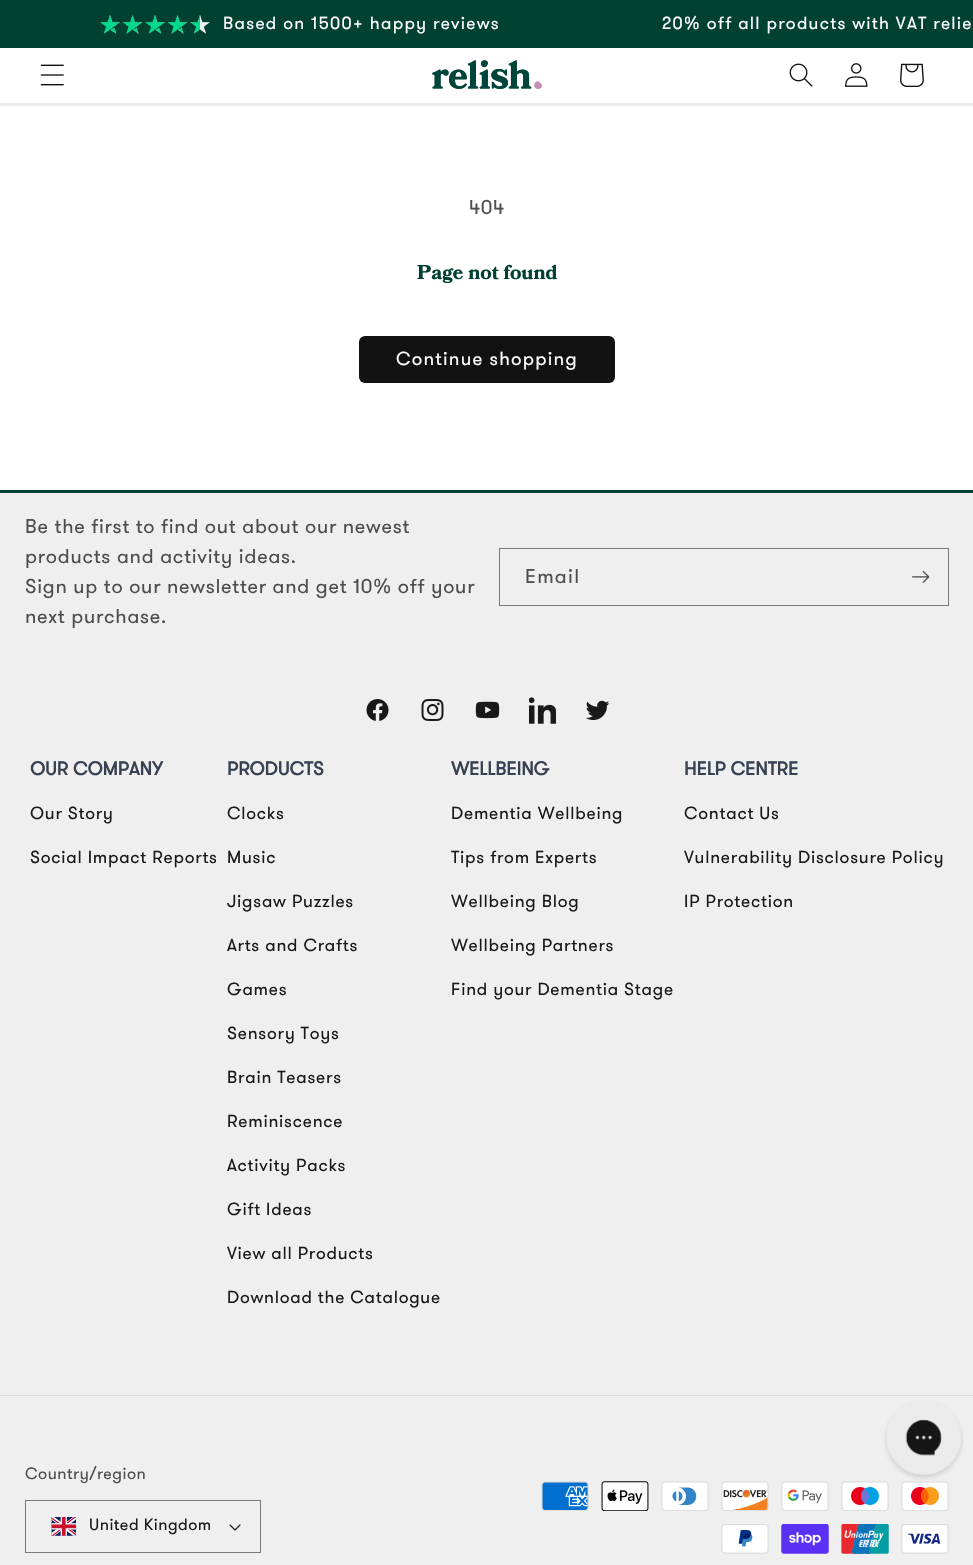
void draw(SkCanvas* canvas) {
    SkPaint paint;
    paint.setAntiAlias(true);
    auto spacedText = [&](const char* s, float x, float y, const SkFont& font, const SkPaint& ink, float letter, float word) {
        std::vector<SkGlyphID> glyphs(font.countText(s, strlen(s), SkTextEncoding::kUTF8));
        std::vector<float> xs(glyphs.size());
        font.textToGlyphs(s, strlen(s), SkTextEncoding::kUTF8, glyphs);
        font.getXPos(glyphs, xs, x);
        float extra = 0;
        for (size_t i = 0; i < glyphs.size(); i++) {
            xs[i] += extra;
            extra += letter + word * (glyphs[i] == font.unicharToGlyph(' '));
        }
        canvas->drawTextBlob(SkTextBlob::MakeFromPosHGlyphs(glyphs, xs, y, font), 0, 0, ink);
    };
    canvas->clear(0xFFFFFFFF);
    paint.setColor(0xFF004131);
    canvas->drawRect(SkRect::MakeXYWH(0, 0, 973, 48), paint);
    canvas->drawImageRect(SkImages::DeferredFromEncodedData(SkData::MakeFromFileName("img1.png")), SkRect::MakeXYWH(100, 15, 110, 19), SkSamplingOptions());
    SkFont font1(fontMgr->matchFamilyStyle("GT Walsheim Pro", SkFontStyle::Normal()), 17.5f);
    font1.setSubpixel(true);
    paint.setColor(0xFFFFFFFF);
    spacedText("Based on 1500+ happy reviews", 223, 29, font1, paint, 1.25f, 0);
    spacedText("20% off all products with VAT relie", 662, 29, font1, paint, 1.25f, 0);
    paint.setColor(0xFFECECEC);
    canvas->drawRect(SkRect::MakeXYWH(0, 103, 973, 3), paint);
    canvas->drawImageRect(SkImages::DeferredFromEncodedData(SkData::MakeFromFileName("img2.png")), SkRect::MakeXYWH(40, 64, 24, 22), SkSamplingOptions());
    canvas->drawImageRect(SkImages::DeferredFromEncodedData(SkData::MakeFromFileName("img3.png")), SkRect::MakeXYWH(432, 60, 111, 29), SkSamplingOptions());
    canvas->drawImageRect(SkImages::DeferredFromEncodedData(SkData::MakeFromFileName("img4.png")), SkRect::MakeXYWH(789, 63, 24, 24), SkSamplingOptions());
    canvas->drawImageRect(SkImages::DeferredFromEncodedData(SkData::MakeFromFileName("img5.png")), SkRect::MakeXYWH(845, 63, 23, 24), SkSamplingOptions());
    canvas->drawImageRect(SkImages::DeferredFromEncodedData(SkData::MakeFromFileName("img6.png")), SkRect::MakeXYWH(900, 63, 24, 24), SkSamplingOptions());
    SkFont font2(fontMgr->matchFamilyStyle("GT Walsheim Pro", SkFontStyle::Normal()), 20);
    font2.setSubpixel(true);
    paint.setColor(0xFF4D4D4D);
    spacedText("404", 469, 214, font2, paint, 0.75f, 0);
    SkFont font3(fontMgr->matchFamilyStyle("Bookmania", SkFontStyle::Bold()), 20);
    font3.setSubpixel(true);
    paint.setColor(0xFF004131);
    canvas->drawString("Page not found", 417, 279, font3, paint);
    paint.setColor(0xFF121212);
    canvas->drawRoundRect(SkRect::MakeXYWH(359, 336, 256, 47), 6, 6, paint);
    SkFont font4(fontMgr->matchFamilyStyle("GT Walsheim Pro", SkFontStyle::Normal()), 18.75f);
    font4.setSubpixel(true);
    paint.setColor(0xFFFFFFFF);
    spacedText("Continue shopping", 396, 365, font4, paint, 1.25f, 0);
    paint.setColor(0xFFEFEFEF);
    canvas->drawRect(SkRect::MakeXYWH(0, 493, 973, 1072), paint);
    paint.setColor(0xFF004131);
    canvas->drawRect(SkRect::MakeXYWH(0, 490, 973, 3), paint);
    paint.setColor(0xFF4D4D4D);
    spacedText("Be the first to find out about our newest", 25, 533, font2, paint, 0.75f, 0);
    spacedText("products and activity ideas.", 25, 563, font2, paint, 0.75f, 0);
    spacedText("Sign up to our newsletter and get 10% off your", 25, 593, font2, paint, 0.75f, 0);
    spacedText("next purchase.", 25, 623, font2, paint, 0.75f, 0);
    paint.setStyle(SkPaint::kStroke_Style);
    paint.setStrokeWidth(1);
    paint.setColor(0xFF797979);
    canvas->drawRect(SkRect::MakeXYWH(499.5f, 548.5f, 449, 57), paint);
    paint.setStyle(SkPaint::kFill_Style);
    paint.setColor(0xFF4D4D4D);
    spacedText("Email", 525, 583, font2, paint, 1.25f, 0);
    canvas->drawImageRect(SkImages::DeferredFromEncodedData(SkData::MakeFromFileName("img7.png")), SkRect::MakeXYWH(912, 570, 18, 13), SkSamplingOptions());
    canvas->drawImageRect(SkImages::DeferredFromEncodedData(SkData::MakeFromFileName("img8.png")), SkRect::MakeXYWH(366, 699, 23, 22), SkSamplingOptions());
    canvas->drawImageRect(SkImages::DeferredFromEncodedData(SkData::MakeFromFileName("img9.png")), SkRect::MakeXYWH(421, 699, 23, 22), SkSamplingOptions());
    canvas->drawImageRect(SkImages::DeferredFromEncodedData(SkData::MakeFromFileName("img10.png")), SkRect::MakeXYWH(475, 701, 25, 18), SkSamplingOptions());
    canvas->drawImageRect(SkImages::DeferredFromEncodedData(SkData::MakeFromFileName("img11.png")), SkRect::MakeXYWH(529, 697, 27, 27), SkSamplingOptions());
    canvas->drawImageRect(SkImages::DeferredFromEncodedData(SkData::MakeFromFileName("img12.png")), SkRect::MakeXYWH(585, 700, 25, 21), SkSamplingOptions());
    SkFont font5(fontMgr->matchFamilyStyle("GT Walsheim Pro", SkFontStyle::Bold()), 18.75f);
    font5.setSubpixel(true);
    paint.setColor(0xFF374151);
    canvas->drawString("OUR COMPANY", 30, 775, font5, paint);
    paint.setColor(0xFF191919);
    spacedText("Our Story", 30, 819, font1, paint, 0.75f, 0);
    spacedText("Social Impact Reports", 30, 863, font1, paint, 0.75f, 0);
    paint.setColor(0xFF374151);
    canvas->drawString("PRODUCTS", 227, 775, font5, paint);
    paint.setColor(0xFF191919);
    spacedText("Clocks", 227, 819, font1, paint, 0.75f, 0);
    spacedText("Music", 227, 863, font1, paint, 0.75f, 0);
    spacedText("Jigsaw Puzzles", 227, 907, font1, paint, 0.75f, 0);
    spacedText("Arts and Crafts", 227, 951, font1, paint, 0.75f, 0);
    spacedText("Games", 227, 995, font1, paint, 0.75f, 0);
    spacedText("Sensory Toys", 227, 1039, font1, paint, 0.75f, 0);
    spacedText("Brain Teasers", 227, 1083, font1, paint, 0.75f, 0);
    spacedText("Reminiscence", 227, 1127, font1, paint, 0.75f, 0);
    spacedText("Activity Packs", 227, 1171, font1, paint, 0.75f, 0);
    spacedText("Gift Ideas", 227, 1215, font1, paint, 0.75f, 0);
    spacedText("View all Products", 227, 1259, font1, paint, 0.75f, 0);
    spacedText("Download the Catalogue", 227, 1303, font1, paint, 0.75f, 0);
    paint.setColor(0xFF374151);
    canvas->drawString("WELLBEING", 451, 775, font5, paint);
    paint.setColor(0xFF191919);
    spacedText("Dementia Wellbeing", 451, 819, font1, paint, 0.75f, 0);
    spacedText("Tips from Experts", 451, 863, font1, paint, 0.75f, 0);
    spacedText("Wellbeing Blog", 451, 907, font1, paint, 0.75f, 0);
    spacedText("Wellbeing Partners", 451, 951, font1, paint, 0.75f, 0);
    spacedText("Find your Dementia Stage", 451, 995, font1, paint, 0.75f, 0);
    paint.setColor(0xFF374151);
    canvas->drawString("HELP CENTRE", 684, 775, font5, paint);
    paint.setColor(0xFF191919);
    spacedText("Contact Us", 684, 819, font1, paint, 0.75f, 0);
    spacedText("Vulnerability Disclosure Policy", 684, 863, font1, paint, 0.75f, 0);
    spacedText("IP Protection", 684, 907, font1, paint, 0.75f, 0);
    paint.setColor(0xFFDEDEDE);
    canvas->drawRect(SkRect::MakeXYWH(0, 1395, 973, 1), paint);
    SkFont font6(fontMgr->matchFamilyStyle("GT Walsheim Pro", SkFontStyle::Normal()), 16.25f);
    font6.setSubpixel(true);
    paint.setColor(0xFF4D4D4D);
    spacedText("Country/region", 25, 1479, font6, paint, 0.5f, 0);
    canvas->drawImageRect(SkImages::DeferredFromEncodedData(SkData::MakeFromFileName("img13.png")), SkRect::MakeXYWH(51, 1517, 26, 19), SkSamplingOptions());
    canvas->drawImageRect(SkImages::DeferredFromEncodedData(SkData::MakeFromFileName("img14.png")), SkRect::MakeXYWH(229, 1524, 12, 7), SkSamplingOptions());
    paint.setStyle(SkPaint::kStroke_Style);
    paint.setColor(0xFF797979);
    canvas->drawRect(SkRect::MakeXYWH(25.5f, 1500.5f, 235, 52), paint);
    paint.setStyle(SkPaint::kFill_Style);
    paint.setColor(0xFF191919);
    spacedText("United Kingdom", 89, 1530, font6, paint, 0.5f, 0);
    canvas->drawImageRect(SkImages::DeferredFromEncodedData(SkData::MakeFromFileName("img15.png")), SkRect::MakeXYWH(541, 1481, 48, 30), SkSamplingOptions());
    canvas->drawImageRect(SkImages::DeferredFromEncodedData(SkData::MakeFromFileName("img16.png")), SkRect::MakeXYWH(601, 1481, 48, 30), SkSamplingOptions());
    canvas->drawImageRect(SkImages::DeferredFromEncodedData(SkData::MakeFromFileName("img17.png")), SkRect::MakeXYWH(661, 1481, 48, 30), SkSamplingOptions());
    canvas->drawImageRect(SkImages::DeferredFromEncodedData(SkData::MakeFromFileName("img18.png")), SkRect::MakeXYWH(721, 1481, 48, 30), SkSamplingOptions());
    canvas->drawImageRect(SkImages::DeferredFromEncodedData(SkData::MakeFromFileName("img19.png")), SkRect::MakeXYWH(781, 1481, 48, 30), SkSamplingOptions());
    canvas->drawImageRect(SkImages::DeferredFromEncodedData(SkData::MakeFromFileName("img20.png")), SkRect::MakeXYWH(841, 1481, 48, 30), SkSamplingOptions());
    canvas->drawImageRect(SkImages::DeferredFromEncodedData(SkData::MakeFromFileName("img21.png")), SkRect::MakeXYWH(901, 1481, 48, 30), SkSamplingOptions());
    canvas->drawImageRect(SkImages::DeferredFromEncodedData(SkData::MakeFromFileName("img22.png")), SkRect::MakeXYWH(721, 1524, 48, 30), SkSamplingOptions());
    canvas->drawImageRect(SkImages::DeferredFromEncodedData(SkData::MakeFromFileName("img23.png")), SkRect::MakeXYWH(781, 1524, 48, 30), SkSamplingOptions());
    canvas->drawImageRect(SkImages::DeferredFromEncodedData(SkData::MakeFromFileName("img24.png")), SkRect::MakeXYWH(841, 1524, 48, 30), SkSamplingOptions());
    canvas->drawImageRect(SkImages::DeferredFromEncodedData(SkData::MakeFromFileName("img25.png")), SkRect::MakeXYWH(901, 1524, 48, 30), SkSamplingOptions());
    canvas->drawImageRect(SkImages::DeferredFromEncodedData(SkData::MakeFromFileName("img26.png")), SkRect::MakeXYWH(884, 1400, 80, 80), SkSamplingOptions());
}
